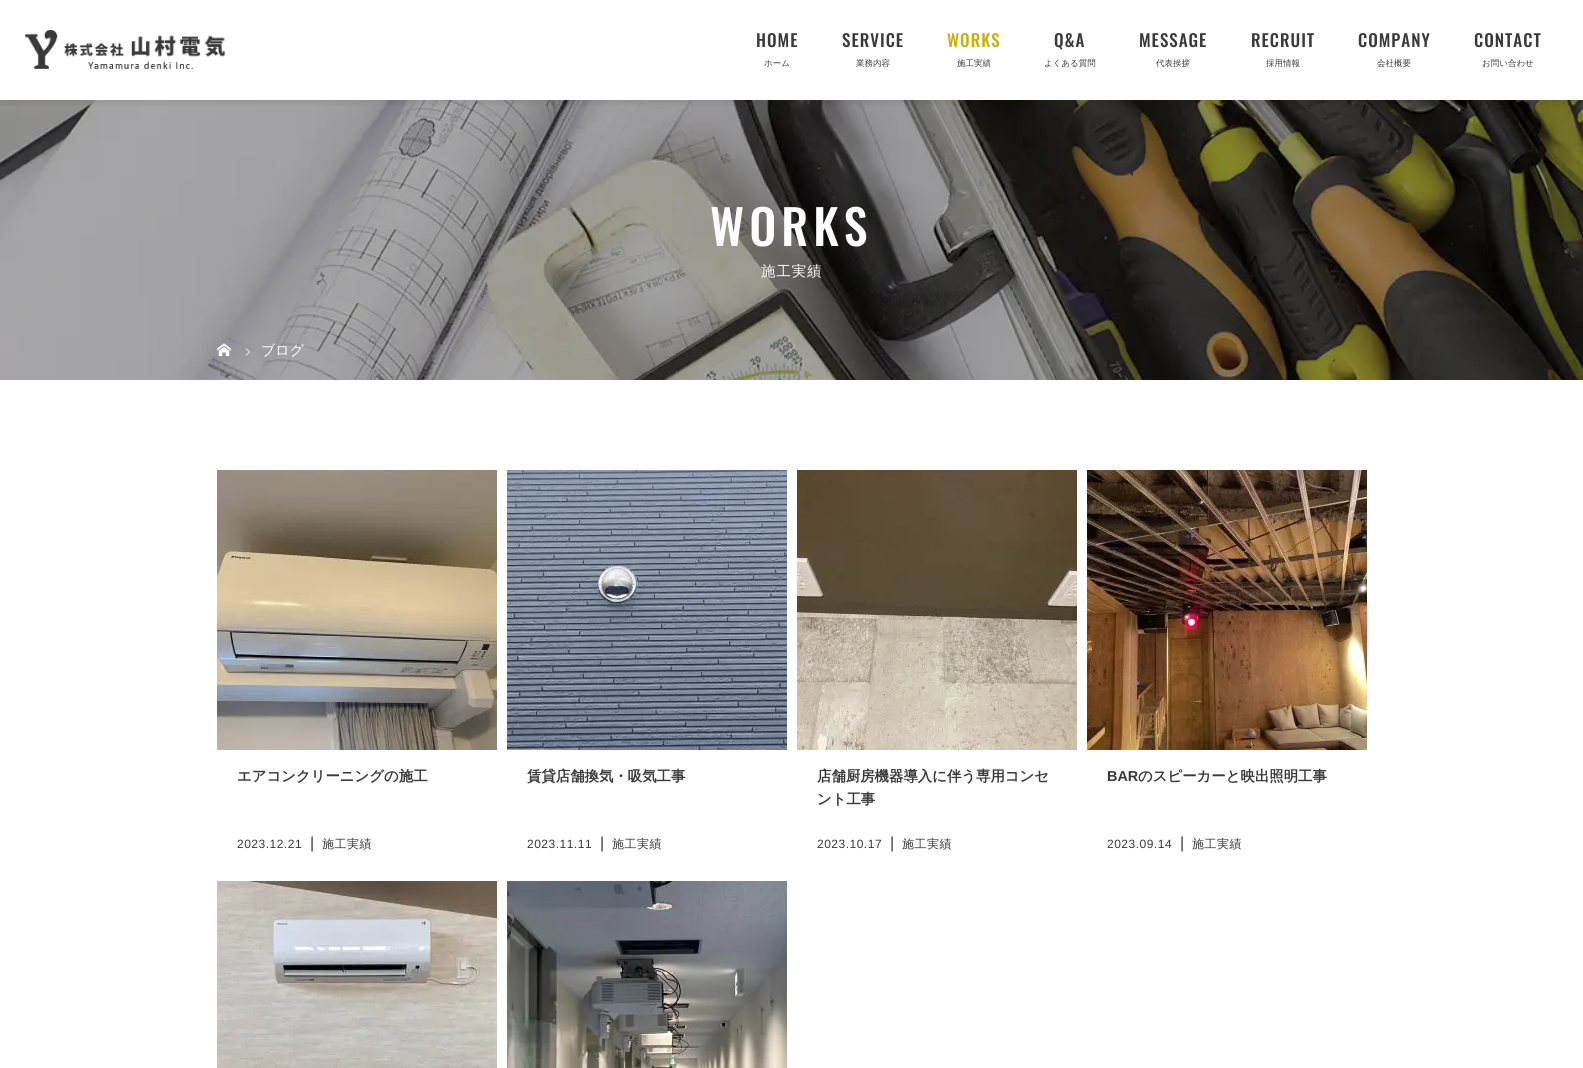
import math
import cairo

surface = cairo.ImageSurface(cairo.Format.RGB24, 1583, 1068)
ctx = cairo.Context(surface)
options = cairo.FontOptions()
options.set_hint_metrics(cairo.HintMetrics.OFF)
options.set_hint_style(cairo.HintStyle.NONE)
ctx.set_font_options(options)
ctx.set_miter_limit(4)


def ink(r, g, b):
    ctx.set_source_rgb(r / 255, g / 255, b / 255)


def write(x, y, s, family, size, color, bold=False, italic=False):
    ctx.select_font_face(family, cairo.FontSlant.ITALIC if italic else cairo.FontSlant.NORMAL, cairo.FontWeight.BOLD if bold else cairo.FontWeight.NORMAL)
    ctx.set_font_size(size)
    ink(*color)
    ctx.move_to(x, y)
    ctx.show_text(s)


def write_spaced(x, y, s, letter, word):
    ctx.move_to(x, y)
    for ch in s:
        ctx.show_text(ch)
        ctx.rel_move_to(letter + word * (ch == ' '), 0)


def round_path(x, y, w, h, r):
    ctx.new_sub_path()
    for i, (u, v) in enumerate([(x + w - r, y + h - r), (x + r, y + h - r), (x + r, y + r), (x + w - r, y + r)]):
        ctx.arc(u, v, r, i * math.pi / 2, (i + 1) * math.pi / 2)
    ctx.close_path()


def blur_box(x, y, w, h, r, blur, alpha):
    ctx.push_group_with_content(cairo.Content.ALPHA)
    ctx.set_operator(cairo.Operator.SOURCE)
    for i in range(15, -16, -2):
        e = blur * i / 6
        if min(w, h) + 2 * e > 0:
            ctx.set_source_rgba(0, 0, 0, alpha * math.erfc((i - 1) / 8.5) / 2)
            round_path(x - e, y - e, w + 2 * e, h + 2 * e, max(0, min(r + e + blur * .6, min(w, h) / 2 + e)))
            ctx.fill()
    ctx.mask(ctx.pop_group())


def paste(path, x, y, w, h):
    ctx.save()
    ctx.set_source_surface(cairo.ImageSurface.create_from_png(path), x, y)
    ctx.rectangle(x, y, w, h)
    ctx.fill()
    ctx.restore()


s1 = dict(family="WenQuanYi Zen Hei Medium", size=8.5, color=(57, 57, 57))
s2 = dict(family="WenQuanYi Zen Hei Medium", size=14, color=(255, 255, 255))
s3 = dict(family="WenQuanYi Zen Hei", size=14.4, color=(57, 57, 57), bold=True)
s4 = dict(family="Liberation Sans", size=14.4, color=(57, 57, 57), bold=True)

ink(255, 255, 255)
ctx.paint()
paste("pic2.png", 0, 100, 1583, 280)
ctx.save()
ctx.rectangle(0, 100, 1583, 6)
ctx.clip()
ink(0, 0, 0)
blur_box(1, 1, 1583, 100, 0, 5, 0.12)
ctx.restore()
paste("pic1.png", 25, 30, 200, 39)
ctx.select_font_face("Oswald Medium")
ctx.set_font_size(17)
ink(57, 57, 57)
write_spaced(756, 47, "HOME", 1, 0)
write(764, 66, "ホーム", **s1)
ctx.select_font_face("Oswald Medium")
ctx.set_font_size(17)
write_spaced(842, 47, "SERVICE", 1, 0)
write(856, 66, "業務内容", **s1)
ctx.select_font_face("Oswald Medium")
ctx.set_font_size(17)
ink(201, 176, 6)
write_spaced(947, 47, "WORKS", 1, 0)
write(957, 66, "施工実績", **s1)
ctx.select_font_face("Oswald Medium")
ctx.set_font_size(17)
write_spaced(1054, 47, "Q&A", 1, 0)
write(1044, 66, "よくある質問", **s1)
ctx.select_font_face("Oswald Medium")
ctx.set_font_size(17)
write_spaced(1139, 47, "MESSAGE", 1, 0)
write(1156, 66, "代表挨拶", **s1)
ctx.select_font_face("Oswald Medium")
ctx.set_font_size(17)
write_spaced(1251, 47, "RECRUIT", 1, 0)
write(1266, 66, "採用情報", **s1)
ctx.select_font_face("Oswald Medium")
ctx.set_font_size(17)
write_spaced(1358, 47, "COMPANY", 1, 0)
write(1377, 66, "会社概要", **s1)
ctx.select_font_face("Oswald Medium")
ctx.set_font_size(17)
write_spaced(1474, 47, "CONTACT", 1, 0)
write(1482, 66, "お問い合わせ", **s1)
ctx.select_font_face("Oswald Medium")
ctx.set_font_size(48)
ink(255, 255, 255)
write_spaced(710, 246, "WORKS", 5, 0)
ctx.select_font_face("WenQuanYi Zen Hei Medium")
ctx.set_font_size(14.4)
write_spaced(761, 276, "施工実績", 1, 0)
paste("pic3.png", 217, 343, 14, 13)
paste("pic4.png", 245, 348, 5, 8)
write(261, 355, "ブログ", **s2)
paste("pic5.png", 217, 470, 280, 280)
write(237, 781, "エアコンクリーニングの施工", **s3)
ctx.select_font_face("Liberation Sans")
ctx.set_font_size(12)
write_spaced(237, 848, "2023.12.21", 0.5, 0)
ctx.set_font_size(16)
write_spaced(310, 848, "|", 0.5, 0)
ctx.select_font_face("WenQuanYi Zen Hei Medium")
ctx.set_font_size(12)
write_spaced(322, 848, "施工実績", 0.5, 0)
paste("pic6.png", 507, 470, 280, 280)
write(527, 781, "賃貸店舗換気・吸気工事", **s3)
ctx.select_font_face("Liberation Sans")
ctx.set_font_size(12)
write_spaced(527, 848, "2023.11.11", 0.5, 0)
ctx.set_font_size(16)
write_spaced(600, 848, "|", 0.5, 0)
ctx.select_font_face("WenQuanYi Zen Hei Medium")
ctx.set_font_size(12)
write_spaced(612, 848, "施工実績", 0.5, 0)
paste("pic7.png", 797, 470, 280, 280)
write(817, 781, "店舗厨房機器導入に伴う専用コンセ", **s3)
write(817, 804, "ント工事", **s3)
ctx.select_font_face("Liberation Sans")
ctx.set_font_size(12)
write_spaced(817, 848, "2023.10.17", 0.5, 0)
ctx.set_font_size(16)
write_spaced(890, 848, "|", 0.5, 0)
ctx.select_font_face("WenQuanYi Zen Hei Medium")
ctx.set_font_size(12)
write_spaced(902, 848, "施工実績", 0.5, 0)
paste("pic8.png", 1087, 470, 280, 280)
write(1107, 781, "BAR", **s4)
write(1138, 781, "のスピーカーと映出照明工事", **s3)
ctx.select_font_face("Liberation Sans")
ctx.set_font_size(12)
write_spaced(1107, 848, "2023.09.14", 0.5, 0)
ctx.set_font_size(16)
write_spaced(1180, 848, "|", 0.5, 0)
ctx.select_font_face("WenQuanYi Zen Hei Medium")
ctx.set_font_size(12)
write_spaced(1192, 848, "施工実績", 0.5, 0)
paste("pic9.png", 217, 881, 280, 187)
paste("pic10.png", 507, 881, 280, 187)
surface.write_to_png("screenshot.png")
